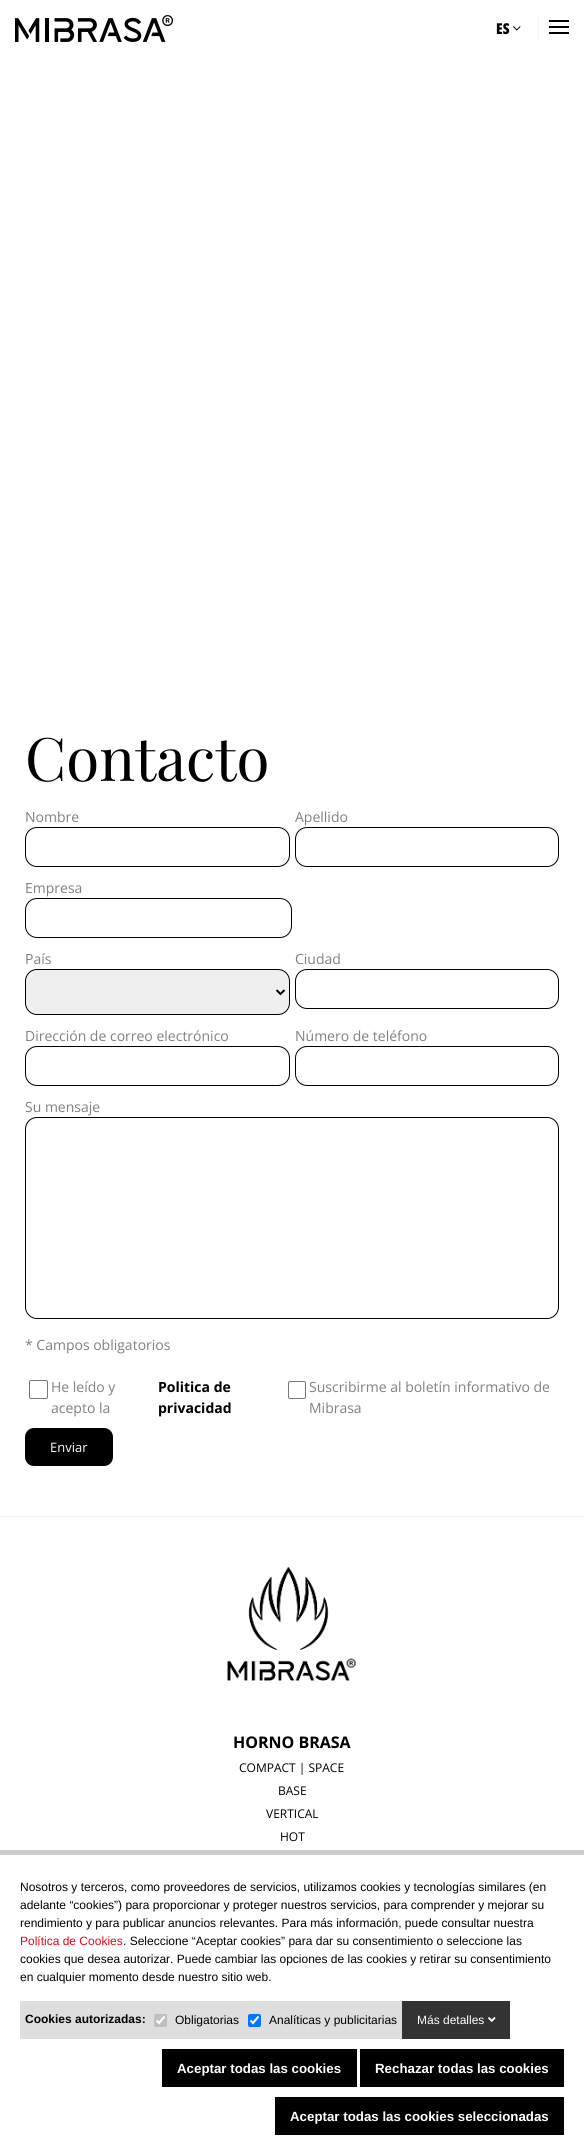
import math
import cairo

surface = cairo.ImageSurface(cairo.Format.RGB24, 584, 2155)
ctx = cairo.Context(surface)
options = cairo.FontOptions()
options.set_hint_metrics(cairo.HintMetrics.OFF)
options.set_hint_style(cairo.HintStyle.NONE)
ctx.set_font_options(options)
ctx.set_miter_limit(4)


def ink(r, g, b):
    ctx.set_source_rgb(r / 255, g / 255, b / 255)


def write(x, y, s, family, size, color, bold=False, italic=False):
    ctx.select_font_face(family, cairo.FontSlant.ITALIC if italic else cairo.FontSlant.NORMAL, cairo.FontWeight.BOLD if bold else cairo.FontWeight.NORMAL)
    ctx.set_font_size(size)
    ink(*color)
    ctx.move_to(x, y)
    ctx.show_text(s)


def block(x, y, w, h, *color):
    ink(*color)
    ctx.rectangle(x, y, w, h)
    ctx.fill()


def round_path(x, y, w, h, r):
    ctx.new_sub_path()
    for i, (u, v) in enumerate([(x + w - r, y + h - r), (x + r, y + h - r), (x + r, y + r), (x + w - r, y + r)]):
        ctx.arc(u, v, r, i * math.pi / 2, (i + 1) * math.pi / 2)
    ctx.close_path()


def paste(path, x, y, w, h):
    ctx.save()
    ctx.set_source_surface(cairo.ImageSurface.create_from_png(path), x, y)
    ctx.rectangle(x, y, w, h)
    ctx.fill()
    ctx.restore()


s1 = dict(family="Open Sans Condensed ExtraBold", size=15, color=(0, 0, 0))
s2 = dict(family="Playfair Display", size=60, color=(0, 0, 0))
s3 = dict(family="Open Sans", size=14, color=(128, 128, 128))
s4 = dict(family="Open Sans", size=14, color=(0, 0, 0), bold=True)
s5 = dict(family="Open Sans", size=13, color=(255, 255, 255))
s6 = dict(family="Open Sans", size=16, color=(0, 0, 0), bold=True)
s7 = dict(family="Open Sans", size=12, color=(0, 0, 0))
s8 = dict(family="Liberation Sans", size=12, color=(0, 0, 0))
s9 = dict(family="Liberation Sans", size=12, color=(225, 7, 23))
s10 = dict(family="Liberation Sans", size=12, color=(0, 0, 0), bold=True)
s11 = dict(family="Liberation Sans", size=12, color=(255, 255, 255))
s12 = dict(family="Liberation Sans", size=13.3, color=(255, 255, 255), bold=True)

ink(255, 255, 255)
ctx.paint()
paste("pic1.png", 15, 15, 158, 27)
write(496, 34, "ES", **s1)
paste("pic2.png", 513, 26, 8, 5)
block(538, 16, 1, 25, 246, 246, 246)
block(549, 20, 20, 2, 0, 0, 0)
block(549, 26, 20, 2, 0, 0, 0)
block(549, 32, 20, 2, 0, 0, 0)
write(25, 781, "Contacto", **s2)
write(25, 822, "Nombre", **s3)
round_path(25.5, 827.5, 264, 39, 11.5)
ink(0, 0, 0)
ctx.set_line_width(1)
ctx.stroke()
write(295, 822, "Apellido", **s3)
round_path(295.5, 827.5, 263, 39, 11.5)
ink(0, 0, 0)
ctx.stroke()
write(25, 893, "Empresa", **s3)
round_path(25.5, 898.5, 266, 39, 11.5)
ink(0, 0, 0)
ctx.stroke()
write(25, 964, "País", **s3)
ink(239, 239, 239)
round_path(25.5, 969.5, 264, 45, 11.5)
ctx.fill_preserve()
ink(0, 0, 0)
ctx.stroke()
ctx.new_path()
ctx.move_to(276.5, 990)
ctx.line_to(280.5, 994)
ctx.line_to(284.5, 990)
ctx.set_line_width(2)
ctx.stroke()
write(295, 964, "Ciudad", **s3)
round_path(295.5, 969.5, 263, 39, 11.5)
ink(0, 0, 0)
ctx.set_line_width(1)
ctx.stroke()
write(25, 1041, "Dirección de correo electrónico", **s3)
round_path(25.5, 1046.5, 264, 39, 11.5)
ink(0, 0, 0)
ctx.stroke()
write(295, 1041, "Número de teléfono", **s3)
round_path(295.5, 1046.5, 263, 39, 11.5)
ink(0, 0, 0)
ctx.stroke()
write(25, 1112, "Su mensaje", **s3)
round_path(25.5, 1117.5, 533, 201, 11.5)
ink(0, 0, 0)
ctx.stroke()
write(25, 1350, "* Campos obligatorios", **s3)
round_path(29.5, 1380.5, 18, 18, 1.5)
ink(118, 118, 118)
ctx.stroke()
write(51, 1392, "He leído y", **s3)
write(158, 1392, "Politica de", **s4)
write(158, 1413, "privacidad", **s4)
write(51, 1413, "acepto la", **s3)
round_path(288.5, 1381.5, 17, 17, 1.5)
ink(118, 118, 118)
ctx.stroke()
write(309, 1392, "Suscribirme al boletín informativo de", **s3)
write(309, 1413, "Mibrasa", **s3)
ink(0, 0, 0)
round_path(25, 1428, 88, 38, 9)
ctx.fill()
write(50, 1452, "Enviar", **s5)
block(0, 1516, 584, 1, 242, 242, 242)
paste("pic3.png", 226, 1567, 131, 114)
write(233, 1748, "HORNO BRASA", **s6)
write(239, 1772, "COMPACT | SPACE", **s7)
write(278, 1795, "BASE", **s7)
write(266, 1818, "VERTICAL", **s7)
write(280, 1841, "HOT", **s7)
block(0, 1850, 584, 5, 204, 204, 204)
write(20, 1891, "Nosotros y terceros, como proveedores de servicios, utilizamos cookies y tecnologías similares (en", **s8)
write(20, 1909, "adelante “cookies”) para proporcionar y proteger nuestros servicios, para comprender y mejorar su", **s8)
write(20, 1927, "rendimiento y para publicar anuncios relevantes. Para más información, puede consultar nuestra", **s8)
write(20, 1945, "Política de Cookies", **s9)
write(123, 1945, ". Seleccione “Aceptar cookies” para dar su consentimiento o seleccione las", **s8)
write(20, 1963, "cookies que desea autorizar. Puede cambiar las opciones de las cookies y retirar su consentimiento", **s8)
write(20, 1981, "en cualquier momento desde nuestro sitio web.", **s8)
block(20, 2001, 382, 38, 222, 222, 222)
write(25, 2023, "Cookies autorizadas:", **s10)
ink(191, 191, 191)
round_path(154, 2014, 13, 13, 2)
ctx.fill()
ctx.new_path()
ctx.move_to(156.5, 2020.5)
ctx.line_to(159, 2023)
ctx.line_to(164.5, 2016.5)
ink(255, 255, 255)
ctx.set_line_width(2.1)
ctx.stroke()
write(175, 2024, "Obligatorias", **s8)
ink(0, 117, 255)
round_path(248, 2014, 13, 13, 2)
ctx.fill()
ctx.new_path()
ctx.move_to(250.5, 2020.5)
ctx.line_to(253, 2023)
ctx.line_to(258.5, 2016.5)
ink(255, 255, 255)
ctx.stroke()
write(269, 2024, "Analíticas y publicitarias", **s8)
block(402, 2001, 108, 38, 51, 51, 51)
write(417, 2024, "Más detalles", **s11)
paste("pic4.png", 488, 2017, 8, 5)
block(162, 2049, 195, 38, 0, 0, 0)
write(177, 2073, "Aceptar todas las cookies", **s12)
block(360, 2049, 204, 38, 0, 0, 0)
write(375, 2073, "Rechazar todas las cookies", **s12)
block(275, 2097, 289, 38, 0, 0, 0)
write(290, 2121, "Aceptar todas las cookies seleccionadas", **s12)
surface.write_to_png("screenshot.png")
